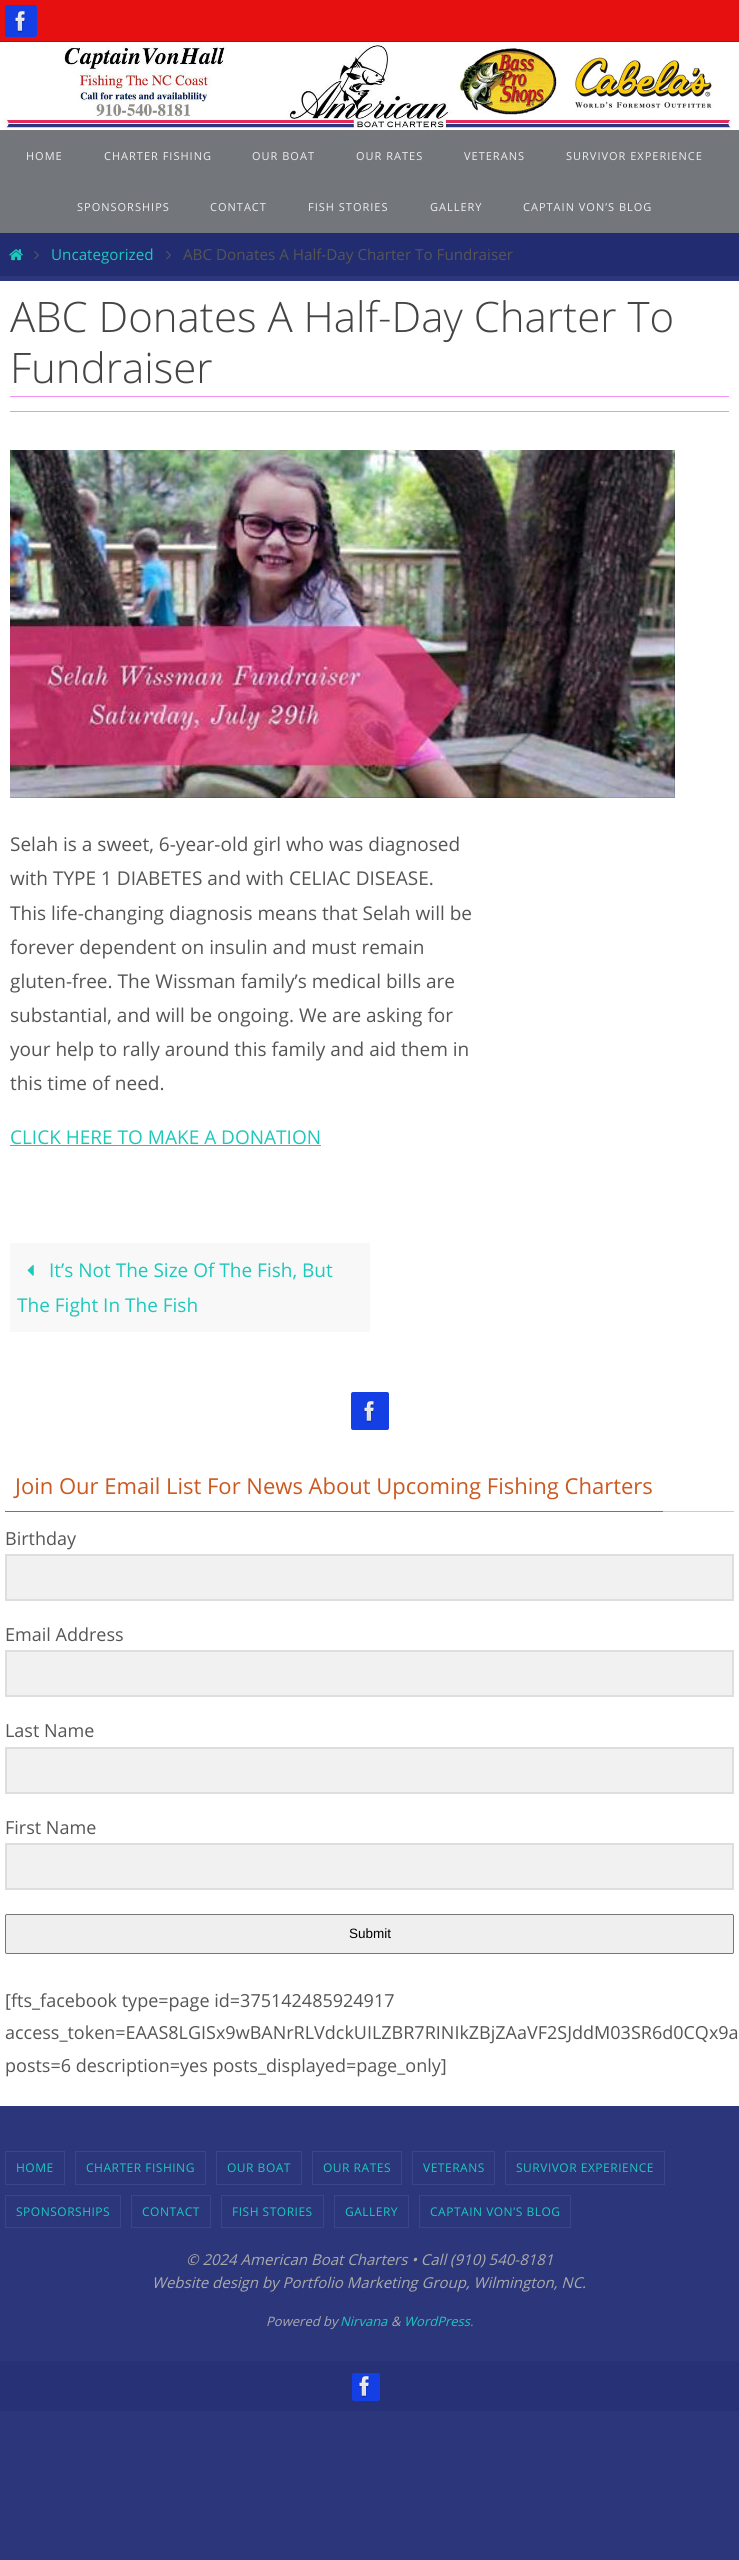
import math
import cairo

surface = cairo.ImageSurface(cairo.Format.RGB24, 739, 2560)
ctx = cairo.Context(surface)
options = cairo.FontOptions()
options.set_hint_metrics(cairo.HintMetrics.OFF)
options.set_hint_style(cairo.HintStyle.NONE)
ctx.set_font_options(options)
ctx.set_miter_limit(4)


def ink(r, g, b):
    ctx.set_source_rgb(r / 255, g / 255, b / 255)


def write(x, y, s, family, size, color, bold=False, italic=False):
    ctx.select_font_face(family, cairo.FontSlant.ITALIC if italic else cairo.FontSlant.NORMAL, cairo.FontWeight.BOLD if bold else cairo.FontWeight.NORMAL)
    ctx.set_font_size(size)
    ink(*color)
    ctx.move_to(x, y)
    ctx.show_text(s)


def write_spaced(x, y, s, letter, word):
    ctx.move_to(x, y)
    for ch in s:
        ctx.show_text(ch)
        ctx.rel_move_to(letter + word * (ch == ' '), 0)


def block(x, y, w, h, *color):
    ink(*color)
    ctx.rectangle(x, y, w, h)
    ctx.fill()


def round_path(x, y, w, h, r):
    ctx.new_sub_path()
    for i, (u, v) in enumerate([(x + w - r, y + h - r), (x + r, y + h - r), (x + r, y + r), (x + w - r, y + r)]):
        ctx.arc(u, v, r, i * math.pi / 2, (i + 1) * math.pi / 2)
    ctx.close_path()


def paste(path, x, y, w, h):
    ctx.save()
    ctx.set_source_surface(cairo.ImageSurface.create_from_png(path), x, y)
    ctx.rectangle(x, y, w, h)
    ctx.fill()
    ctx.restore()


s1 = dict(family="Open Sans", size=15.2, color=(30, 200, 187))
s2 = dict(family="Open Sans", size=15.2, color=(85, 85, 85))
s3 = dict(family="Open Sans Light", size=42, color=(68, 68, 68))
s4 = dict(family="Open Sans", size=19, color=(85, 85, 85))
s5 = dict(family="Open Sans", size=19, color=(30, 200, 187))
s6 = dict(family="Open Sans", size=22, color=(203, 89, 32))
s7 = dict(family="Open Sans", size=18, color=(85, 85, 85))
s8 = dict(family="Liberation Sans", size=13.5, color=(0, 0, 0))
s9 = dict(family="Open Sans", size=15, color=(170, 170, 170), italic=True)
s10 = dict(family="Open Sans", size=13, color=(170, 170, 170), italic=True)
s11 = dict(family="Open Sans", size=13, color=(30, 200, 187), italic=True)

ink(43, 54, 123)
ctx.paint()
block(0, 0, 739, 41, 231, 16, 16)
block(0, 41, 739, 1, 211, 0, 0)
ink(20, 63, 229)
round_path(5, 5, 32, 32, 2)
ctx.fill()
paste("pic1.png", 14, 11, 12, 22)
block(0, 42, 739, 88, 255, 255, 255)
paste("pic2.png", 4, 42, 727, 88)
block(0, 130, 739, 103, 115, 118, 123)
ctx.select_font_face("Open Sans")
ctx.set_font_size(11)
ink(238, 238, 238)
write_spaced(26, 160, "HOME", 1, 0)
write_spaced(104, 160, "CHARTER FISHING", 1, 0)
write_spaced(252, 160, "OUR BOAT", 1, 0)
write_spaced(356, 160, "OUR RATES", 1, 0)
write_spaced(464, 160, "VETERANS", 1, 0)
write_spaced(566, 160, "SURVIVOR EXPERIENCE", 1, 0)
write_spaced(77, 211, "SPONSORSHIPS", 1, 0)
write_spaced(210, 211, "CONTACT", 1, 0)
write_spaced(308, 211, "FISH STORIES", 1, 0)
write_spaced(430, 211, "GALLERY", 1, 0)
write_spaced(523, 211, "CAPTAIN VON’S BLOG", 1, 0)
block(0, 233, 739, 43, 33, 44, 113)
paste("pic3.png", 9, 249, 14, 12)
paste("pic4.png", 34, 251, 5, 9)
write(51, 260, "Uncategorized", **s1)
paste("pic4.png", 166, 251, 5, 9)
write(183, 260, "ABC Donates A Half-Day Charter To Fundraiser", **s2)
block(0, 281, 739, 1825, 255, 255, 255)
write(10, 332, "ABC Donates A Half-Day Charter To", **s3)
write(10, 383, "Fundraiser", **s3)
block(10, 396, 719, 1, 239, 145, 246)
block(10, 411, 719, 1, 239, 145, 246)
paste("pic5.png", 10, 450, 665, 348)
write(10, 851, "Selah is a sweet, 6-year-old girl who was diagnosed", **s4)
write(10, 885, "with TYPE 1 DIABETES and with CELIAC DISEASE.", **s4)
write(10, 920, "This life-changing diagnosis means that Selah will be", **s4)
write(10, 954, "forever dependent on insulin and must remain", **s4)
write(10, 988, "gluten-free. The Wissman family’s medical bills are", **s4)
write(10, 1022, "substantial, and will be ongoing. We are asking for", **s4)
write(10, 1056, "your help to rally around this family and aid them in", **s4)
write(10, 1090, "this time of need.", **s4)
write(10, 1144, "CLICK HERE TO MAKE A DONATION", **s5)
block(10, 1145, 311, 1, 30, 200, 187)
block(10, 1243, 360, 89, 248, 248, 248)
paste("pic6.png", 27, 1265, 7, 11)
write(49, 1277, "It’s Not The Size Of The Fish, But", **s5)
write(17, 1312, "The Fight In The Fish", **s5)
ink(20, 63, 229)
round_path(351, 1392, 38, 38, 2)
ctx.fill()
paste("pic1.png", 363, 1401, 12, 22)
block(663, 1511, 71, 1, 204, 204, 204)
block(5, 1511, 658, 1, 203, 89, 32)
write(15, 1494, "Join Our Email List For News About Upcoming Fishing Charters", **s6)
write(5, 1545, "Birthday", **s7)
ink(241, 241, 241)
ctx.rectangle(6, 1555, 727, 45)
ctx.fill_preserve()
ink(222, 222, 222)
ctx.stroke()
write(5, 1641, "Email Address", **s7)
ink(241, 241, 241)
ctx.rectangle(6, 1651, 727, 45)
ctx.fill_preserve()
ink(222, 222, 222)
ctx.stroke()
write(5, 1737, "Last Name", **s7)
ink(241, 241, 241)
ctx.rectangle(6, 1748, 727, 45)
ctx.fill_preserve()
ink(222, 222, 222)
ctx.stroke()
write(5, 1834, "First Name", **s7)
ink(241, 241, 241)
ctx.rectangle(6, 1844, 727, 45)
ctx.fill_preserve()
ink(222, 222, 222)
ctx.stroke()
ink(239, 239, 239)
round_path(5.5, 1914.5, 728, 39, 1.5)
ctx.fill_preserve()
ink(118, 118, 118)
ctx.set_line_width(1)
ctx.stroke()
write(349, 1938, "Submit", **s8)
write(5, 2007, "[fts_facebook type=page id=375142485924917", **s7)
write(5, 2039, "access_token=EAAS8LGISx9wBANrRLVdckUILZBR7RINIkZBjZAaVF2SJddM03SR6d0CQx9a", **s7)
write(5, 2072, "posts=6 description=yes posts_displayed=page_only]", **s7)
ctx.rectangle(5.5, 2151.5, 59, 33)
ink(58, 69, 138)
ctx.stroke()
ctx.set_font_size(12)
ink(30, 200, 187)
write_spaced(16, 2172, "HOME", 0.5, 0)
ctx.rectangle(75.5, 2151.5, 130, 33)
ink(58, 69, 138)
ctx.stroke()
ink(30, 200, 187)
write_spaced(86, 2172, "CHARTER FISHING", 0.5, 0)
ctx.rectangle(216.5, 2151.5, 85, 33)
ink(58, 69, 138)
ctx.stroke()
ink(30, 200, 187)
write_spaced(227, 2172, "OUR BOAT", 0.5, 0)
ctx.rectangle(312.5, 2151.5, 89, 33)
ink(58, 69, 138)
ctx.stroke()
ink(30, 200, 187)
write_spaced(323, 2172, "OUR RATES", 0.5, 0)
ctx.rectangle(412.5, 2151.5, 82, 33)
ink(58, 69, 138)
ctx.stroke()
ink(30, 200, 187)
write_spaced(423, 2172, "VETERANS", 0.5, 0)
ctx.rectangle(505.5, 2151.5, 159, 33)
ink(58, 69, 138)
ctx.stroke()
ink(30, 200, 187)
write_spaced(516, 2172, "SURVIVOR EXPERIENCE", 0.5, 0)
ctx.rectangle(5.5, 2195.5, 115, 32)
ink(58, 69, 138)
ctx.stroke()
ink(30, 200, 187)
write_spaced(16, 2216, "SPONSORSHIPS", 0.5, 0)
ctx.rectangle(131.5, 2195.5, 79, 32)
ink(58, 69, 138)
ctx.stroke()
ink(30, 200, 187)
write_spaced(142, 2216, "CONTACT", 0.5, 0)
ctx.rectangle(221.5, 2195.5, 102, 32)
ink(58, 69, 138)
ctx.stroke()
ink(30, 200, 187)
write_spaced(232, 2216, "FISH STORIES", 0.5, 0)
ctx.rectangle(334.5, 2195.5, 74, 32)
ink(58, 69, 138)
ctx.stroke()
ink(30, 200, 187)
write_spaced(345, 2216, "GALLERY", 0.5, 0)
ctx.rectangle(419.5, 2195.5, 151, 32)
ink(58, 69, 138)
ctx.stroke()
ink(30, 200, 187)
write_spaced(430, 2216, "CAPTAIN VON’S BLOG", 0.5, 0)
write(186, 2265, "© 2024 American Boat Charters • Call (910) 540-8181", **s9)
write(152, 2288, "Website design by Portfolio Marketing Group, Wilmington, NC.", **s9)
write(266, 2326, "Powered by", **s10)
write(340, 2326, "Nirvana", **s11)
write(391, 2326, "&", **s10)
write(404, 2326, "WordPress.", **s11)
block(0, 2361, 739, 50, 38, 49, 118)
ink(20, 63, 229)
round_path(352, 2373, 28, 28, 2)
ctx.fill()
paste("pic1.png", 358, 2376, 12, 22)
surface.write_to_png("screenshot.png")
